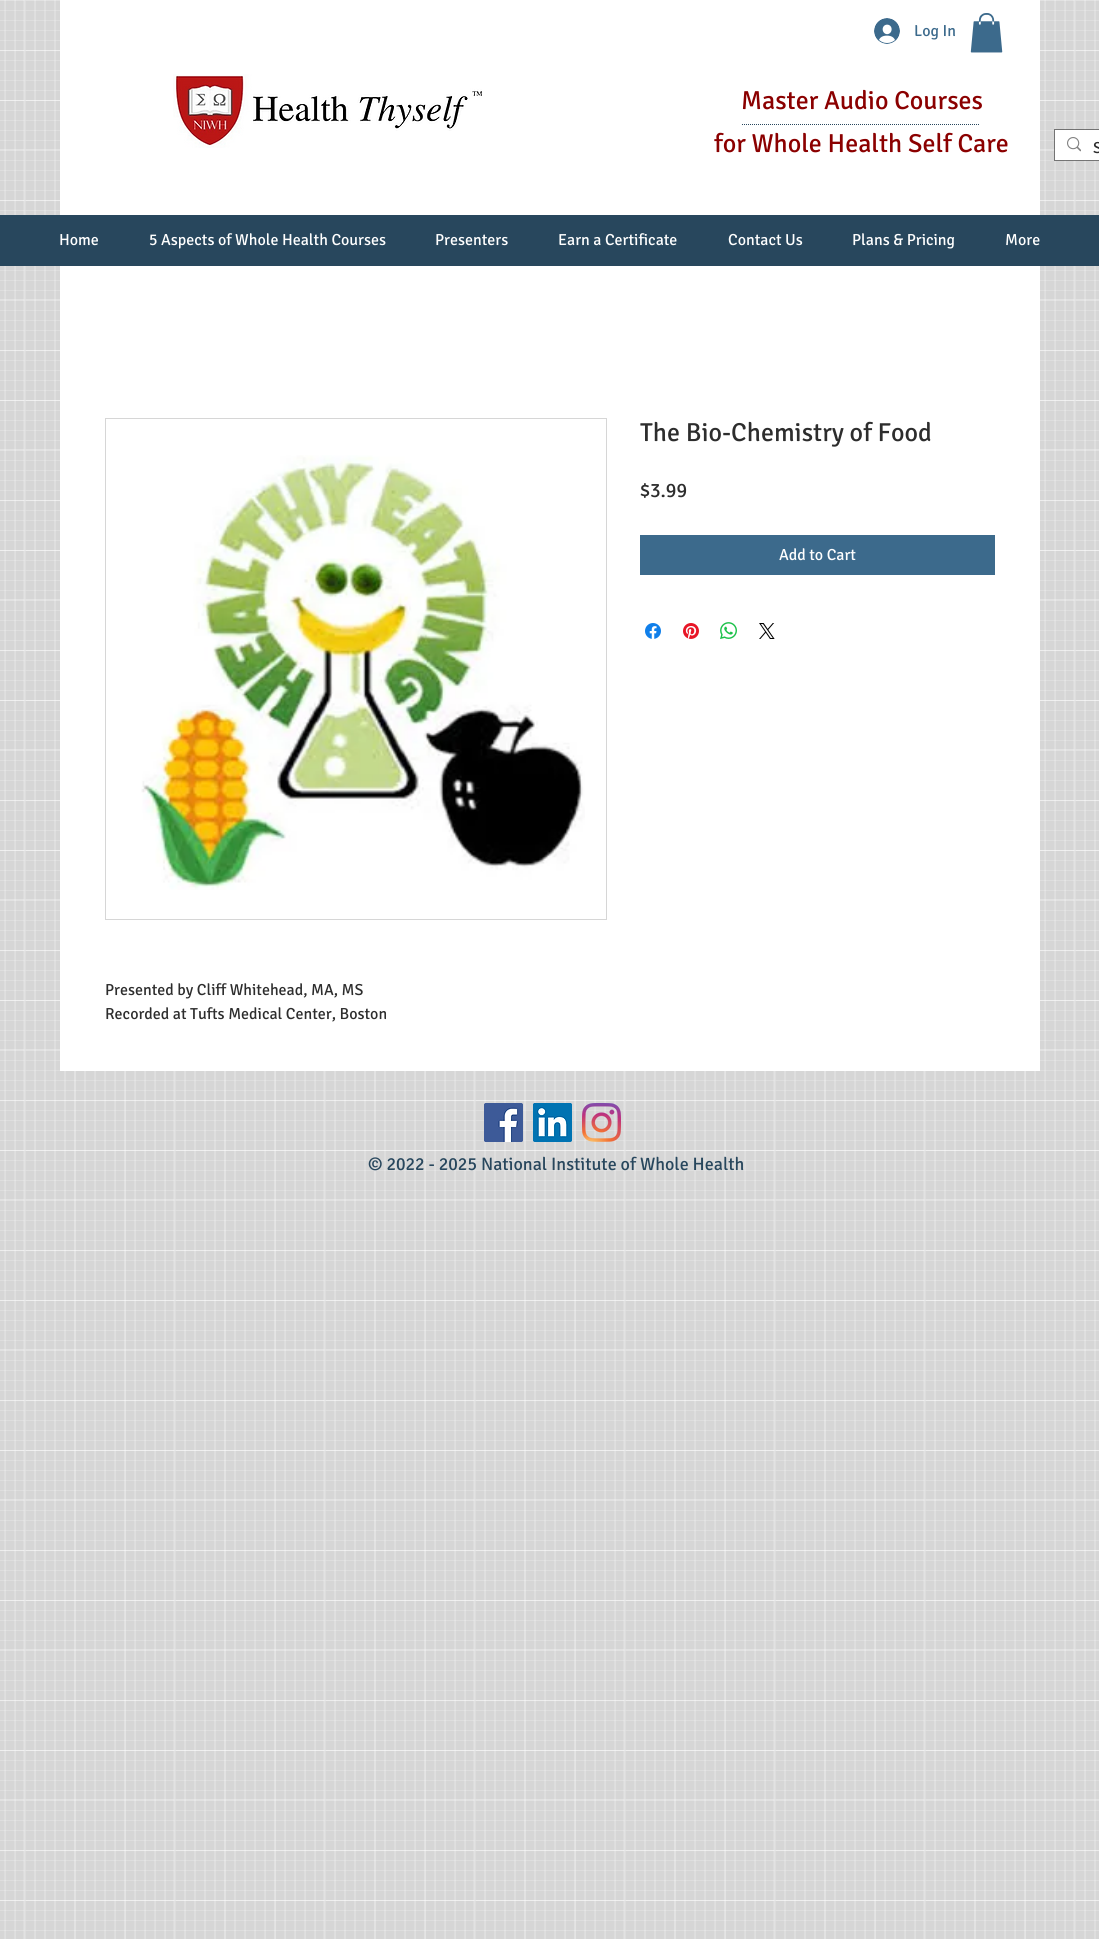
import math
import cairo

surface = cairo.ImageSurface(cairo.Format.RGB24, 1099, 1939)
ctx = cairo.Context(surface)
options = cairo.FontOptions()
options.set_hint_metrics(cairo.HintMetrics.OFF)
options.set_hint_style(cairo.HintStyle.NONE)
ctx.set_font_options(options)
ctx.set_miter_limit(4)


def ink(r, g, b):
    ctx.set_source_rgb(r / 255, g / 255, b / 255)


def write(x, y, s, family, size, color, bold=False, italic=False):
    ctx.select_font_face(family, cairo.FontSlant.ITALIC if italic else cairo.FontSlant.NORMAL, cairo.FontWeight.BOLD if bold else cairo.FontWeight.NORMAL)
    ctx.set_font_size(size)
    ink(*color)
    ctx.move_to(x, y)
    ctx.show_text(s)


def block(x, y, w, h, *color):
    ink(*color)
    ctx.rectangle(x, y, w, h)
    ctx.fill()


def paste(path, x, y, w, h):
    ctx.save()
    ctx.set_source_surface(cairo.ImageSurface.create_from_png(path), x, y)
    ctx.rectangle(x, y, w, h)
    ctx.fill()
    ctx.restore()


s1 = dict(family="Signika", size=16, color=(60, 106, 140))
s2 = dict(family="Signika", size=26, color=(139, 0, 0))
s3 = dict(family="Signika", size=16, color=(45, 45, 45))
s4 = dict(family="Signika", size=16, color=(255, 255, 255))
s5 = dict(family="Signika", size=26, color=(45, 45, 45))
s6 = dict(family="Signika", size=20, color=(45, 45, 45))
s7 = dict(family="Signika", size=18, color=(40, 71, 93))

ink(214, 214, 214)
ctx.paint()
paste("pic1.png", 0, 0, 1099, 1939)
block(60, 0, 980, 1071, 255, 255, 255)
paste("pic2.png", 874, 18, 26, 26)
write(914, 36, "Log In", **s1)
paste("pic3.png", 970, 13, 33, 40)
paste("pic4.png", 173, 74, 309, 74)
write(741, 109, "Master Audio Courses", **s2)
ctx.new_path()
ctx.move_to(742, 124.5)
ctx.line_to(980, 124.5)
ink(40, 71, 93)
ctx.set_line_width(1)
ctx.set_dash([1, 1])
ctx.stroke()
write(714, 152, "for Whole Health Self Care", **s2)
ctx.rectangle(1054.5, 129.5, 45, 31)
ctx.set_source_rgba(0.176, 0.176, 0.176, 0.6)
ctx.set_dash([])
ctx.stroke()
block(1055, 130, 44, 30, 255, 255, 255)
paste("pic5.png", 1067, 137, 14, 15)
write(1093, 153, "S", **s3)
block(0, 215, 1099, 51, 40, 71, 93)
write(59, 245, "Home", **s4)
write(149, 245, "5 Aspects of Whole Health Courses", **s4)
write(435, 245, "Presenters", **s4)
write(558, 245, "Earn a Certificate", **s4)
write(728, 245, "Contact Us", **s4)
write(852, 245, "Plans & Pricing", **s4)
write(1005, 245, "More", **s4)
write(640, 441, "The Bio-Chemistry of Food", **s5)
write(640, 497, "$3.99", **s6)
block(640, 535, 355, 40, 60, 106, 140)
write(779, 560, "Add to Cart", **s4)
paste("pic6.png", 645, 623, 16, 16)
paste("pic7.png", 683, 623, 16, 16)
paste("pic8.png", 720, 622, 17, 17)
paste("pic9.png", 759, 623, 16, 16)
ctx.rectangle(105.5, 418.5, 501, 501)
ink(214, 214, 214)
ctx.stroke()
paste("pic10.png", 141, 455, 444, 435)
write(105, 995, "Presented by Cliff Whitehead, MA, MS", **s3)
write(105, 1019, "Recorded at Tufts Medical Center, Boston", **s3)
paste("pic11.png", 484, 1103, 39, 39)
paste("pic12.png", 533, 1103, 39, 39)
paste("pic13.png", 582, 1103, 39, 39)
write(368, 1170, "© 2022 - 2025 National Institute of Whole Health", **s7)
surface.write_to_png("screenshot.png")
